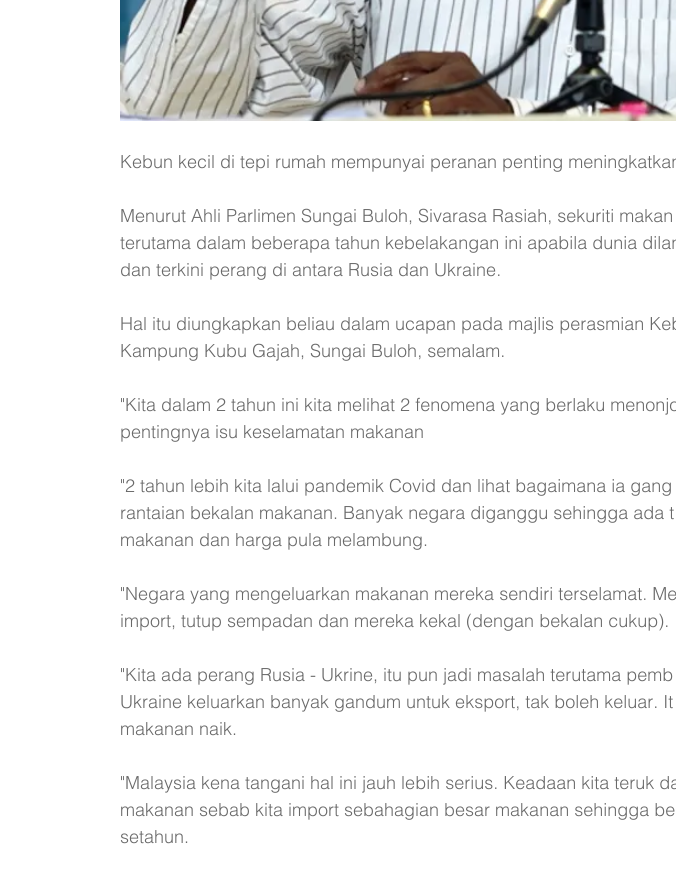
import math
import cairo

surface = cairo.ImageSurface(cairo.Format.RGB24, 676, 876)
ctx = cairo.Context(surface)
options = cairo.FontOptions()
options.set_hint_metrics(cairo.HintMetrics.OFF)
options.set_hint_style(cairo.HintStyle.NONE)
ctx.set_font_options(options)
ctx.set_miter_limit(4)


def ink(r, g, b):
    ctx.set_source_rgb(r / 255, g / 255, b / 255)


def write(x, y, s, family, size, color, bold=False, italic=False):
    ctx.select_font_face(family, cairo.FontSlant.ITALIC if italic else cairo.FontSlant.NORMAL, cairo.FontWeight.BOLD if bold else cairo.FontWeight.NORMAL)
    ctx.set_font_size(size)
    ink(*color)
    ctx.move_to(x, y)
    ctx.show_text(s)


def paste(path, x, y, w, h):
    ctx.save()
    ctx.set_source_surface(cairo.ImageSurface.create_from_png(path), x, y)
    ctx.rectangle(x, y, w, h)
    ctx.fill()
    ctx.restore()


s1 = dict(family="helvetica Light", size=18, color=(105, 105, 105))

ink(255, 255, 255)
ctx.paint()
paste("pic1.png", 120, 0, 556, 121)
write(120, 168, "Kebun kecil di tepi rumah mempunyai peranan penting meningkatkan", **s1)
write(120, 222, "Menurut Ahli Parlimen Sungai Buloh, Sivarasa Rasiah, sekuriti makan", **s1)
write(120, 249, "terutama dalam beberapa tahun kebelakangan ini apabila dunia dilan", **s1)
write(120, 276, "dan terkini perang di antara Rusia dan Ukraine.", **s1)
write(120, 330, "Hal itu diungkapkan beliau dalam ucapan pada majlis perasmian Keb", **s1)
write(120, 357, "Kampung Kubu Gajah, Sungai Buloh, semalam.", **s1)
write(120, 411, "\"Kita dalam 2 tahun ini kita melihat 2 fenomena yang berlaku menonjo", **s1)
write(120, 438, "pentingnya isu keselamatan makanan", **s1)
write(120, 492, "\"2 tahun lebih kita lalui pandemik Covid dan lihat bagaimana ia gang", **s1)
write(120, 519, "rantaian bekalan makanan. Banyak negara diganggu sehingga ada t", **s1)
write(120, 546, "makanan dan harga pula melambung.", **s1)
write(120, 600, "\"Negara yang mengeluarkan makanan mereka sendiri terselamat. Me", **s1)
write(120, 627, "import, tutup sempadan dan mereka kekal (dengan bekalan cukup).", **s1)
write(120, 681, "\"Kita ada perang Rusia - Ukrine, itu pun jadi masalah terutama pemb", **s1)
write(120, 708, "Ukraine keluarkan banyak gandum untuk eksport, tak boleh keluar. It", **s1)
write(120, 735, "makanan naik.", **s1)
write(120, 789, "\"Malaysia kena tangani hal ini jauh lebih serius. Keadaan kita teruk da", **s1)
write(120, 816, "makanan sebab kita import sebahagian besar makanan sehingga be", **s1)
write(120, 843, "setahun.", **s1)
surface.write_to_png("screenshot.png")
